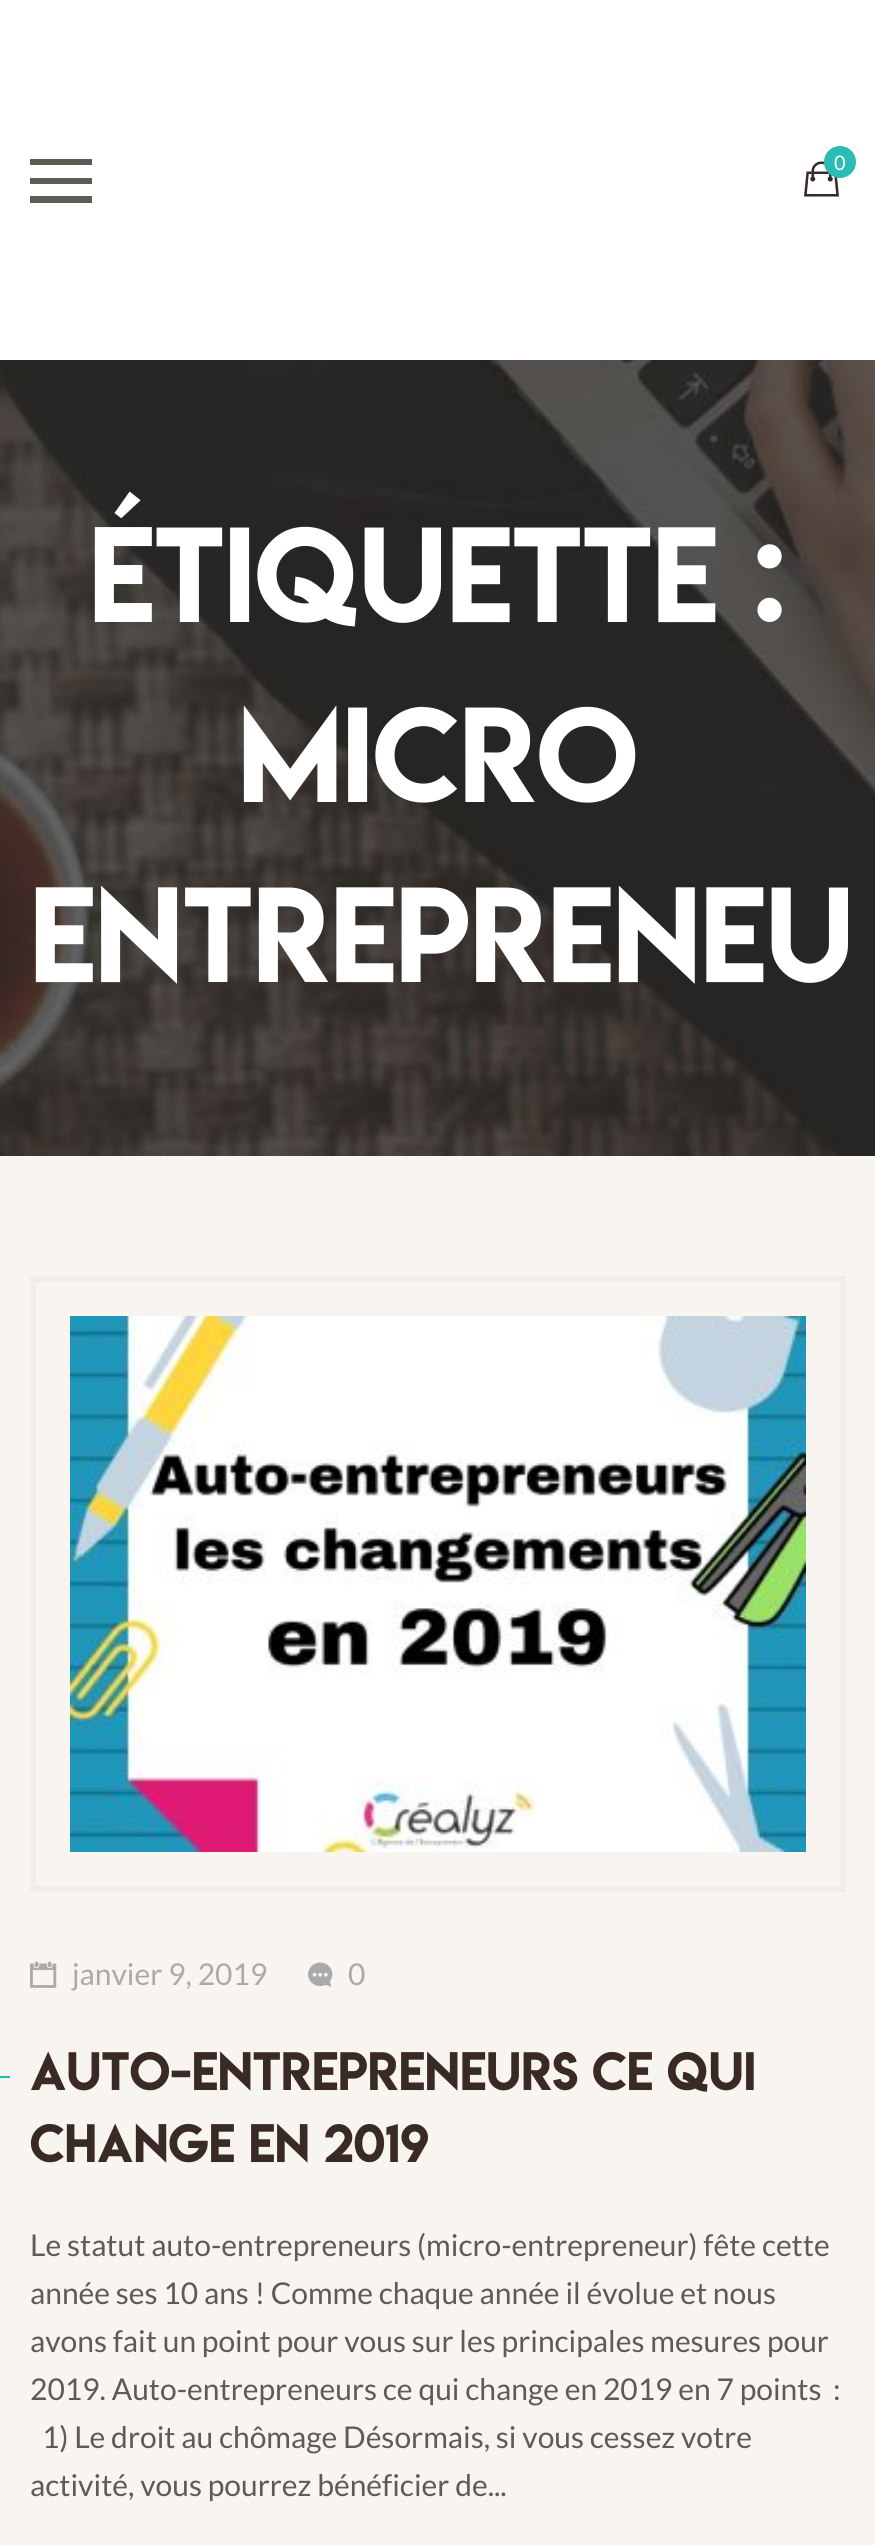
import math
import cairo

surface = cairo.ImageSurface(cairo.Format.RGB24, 875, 2545)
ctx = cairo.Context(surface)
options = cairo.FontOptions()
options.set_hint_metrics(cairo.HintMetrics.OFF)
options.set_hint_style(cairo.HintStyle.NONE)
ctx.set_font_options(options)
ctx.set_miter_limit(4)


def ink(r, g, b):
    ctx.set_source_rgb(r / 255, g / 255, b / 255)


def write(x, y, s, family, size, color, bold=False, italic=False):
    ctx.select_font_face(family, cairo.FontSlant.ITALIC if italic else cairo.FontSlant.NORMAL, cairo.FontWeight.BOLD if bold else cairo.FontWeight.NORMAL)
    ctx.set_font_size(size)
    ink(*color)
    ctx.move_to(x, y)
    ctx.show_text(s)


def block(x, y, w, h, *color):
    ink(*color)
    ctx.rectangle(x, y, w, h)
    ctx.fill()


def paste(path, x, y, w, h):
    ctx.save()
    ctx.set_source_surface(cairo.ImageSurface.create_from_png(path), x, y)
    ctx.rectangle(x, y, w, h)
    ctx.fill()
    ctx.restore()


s1 = dict(family="Lato", size=20, color=(255, 255, 255))
s2 = dict(family="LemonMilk", size=120, color=(255, 255, 255))
s3 = dict(family="Lato", size=30, color=(170, 170, 170))
s4 = dict(family="LemonMilk", size=48, color=(57, 42, 37))
s5 = dict(family="Lato", size=30, color=(94, 90, 84))

ink(248, 245, 240)
ctx.paint()
block(0, 0, 875, 360, 255, 255, 255)
ink(94, 90, 84)
ctx.new_path()
ctx.move_to(30, 184)
ctx.line_to(30, 178)
ctx.line_to(92, 178)
ctx.line_to(92, 184)
ctx.close_path()
ctx.move_to(30, 165)
ctx.line_to(30, 159)
ctx.line_to(92, 159)
ctx.line_to(92, 165)
ctx.close_path()
ctx.move_to(30, 203)
ctx.line_to(30, 196)
ctx.line_to(92, 196)
ctx.line_to(92, 203)
ctx.close_path()
ctx.fill()
paste("pic1.png", 804, 161, 35, 36)
ink(43, 188, 181)
ctx.arc(840, 162, 16, 0, 2 * math.pi)
ctx.fill()
write(834, 170, "0", **s1)
paste("pic2.png", 0, 360, 875, 796)
write(89, 622, "Étiquette :", **s2)
write(238, 802, "micro", **s2)
write(30, 982, "entrepreneu", **s2)
ctx.rectangle(33, 1279, 810, 610)
ink(241, 238, 234)
ctx.set_line_width(6)
ctx.stroke()
paste("pic3.png", 70, 1316, 736, 536)
paste("pic4.png", 30, 1961, 27, 27)
write(72, 1985, "janvier 9, 2019", **s3)
paste("pic5.png", 308, 1962, 25, 25)
write(348, 1985, "0", **s3)
block(0, 2076, 10, 2, 30, 188, 178)
write(30, 2090, "AUTO-ENTREPRENEURS CE QUI", **s4)
write(30, 2162, "CHANGE EN 2019", **s4)
write(30, 2256, "Le statut auto-entrepreneurs (micro-entrepreneur) fête cette", **s5)
write(30, 2304, "année ses 10 ans ! Comme chaque année il évolue et nous", **s5)
write(30, 2352, "avons fait un point pour vous sur les principales mesures pour", **s5)
write(30, 2400, "2019. Auto-entrepreneurs ce qui change en 2019 en 7 points  :", **s5)
write(42, 2448, "1) Le droit au chômage Désormais, si vous cessez votre", **s5)
write(30, 2496, "activité, vous pourrez bénéficier de...", **s5)
surface.write_to_png("screenshot.png")
